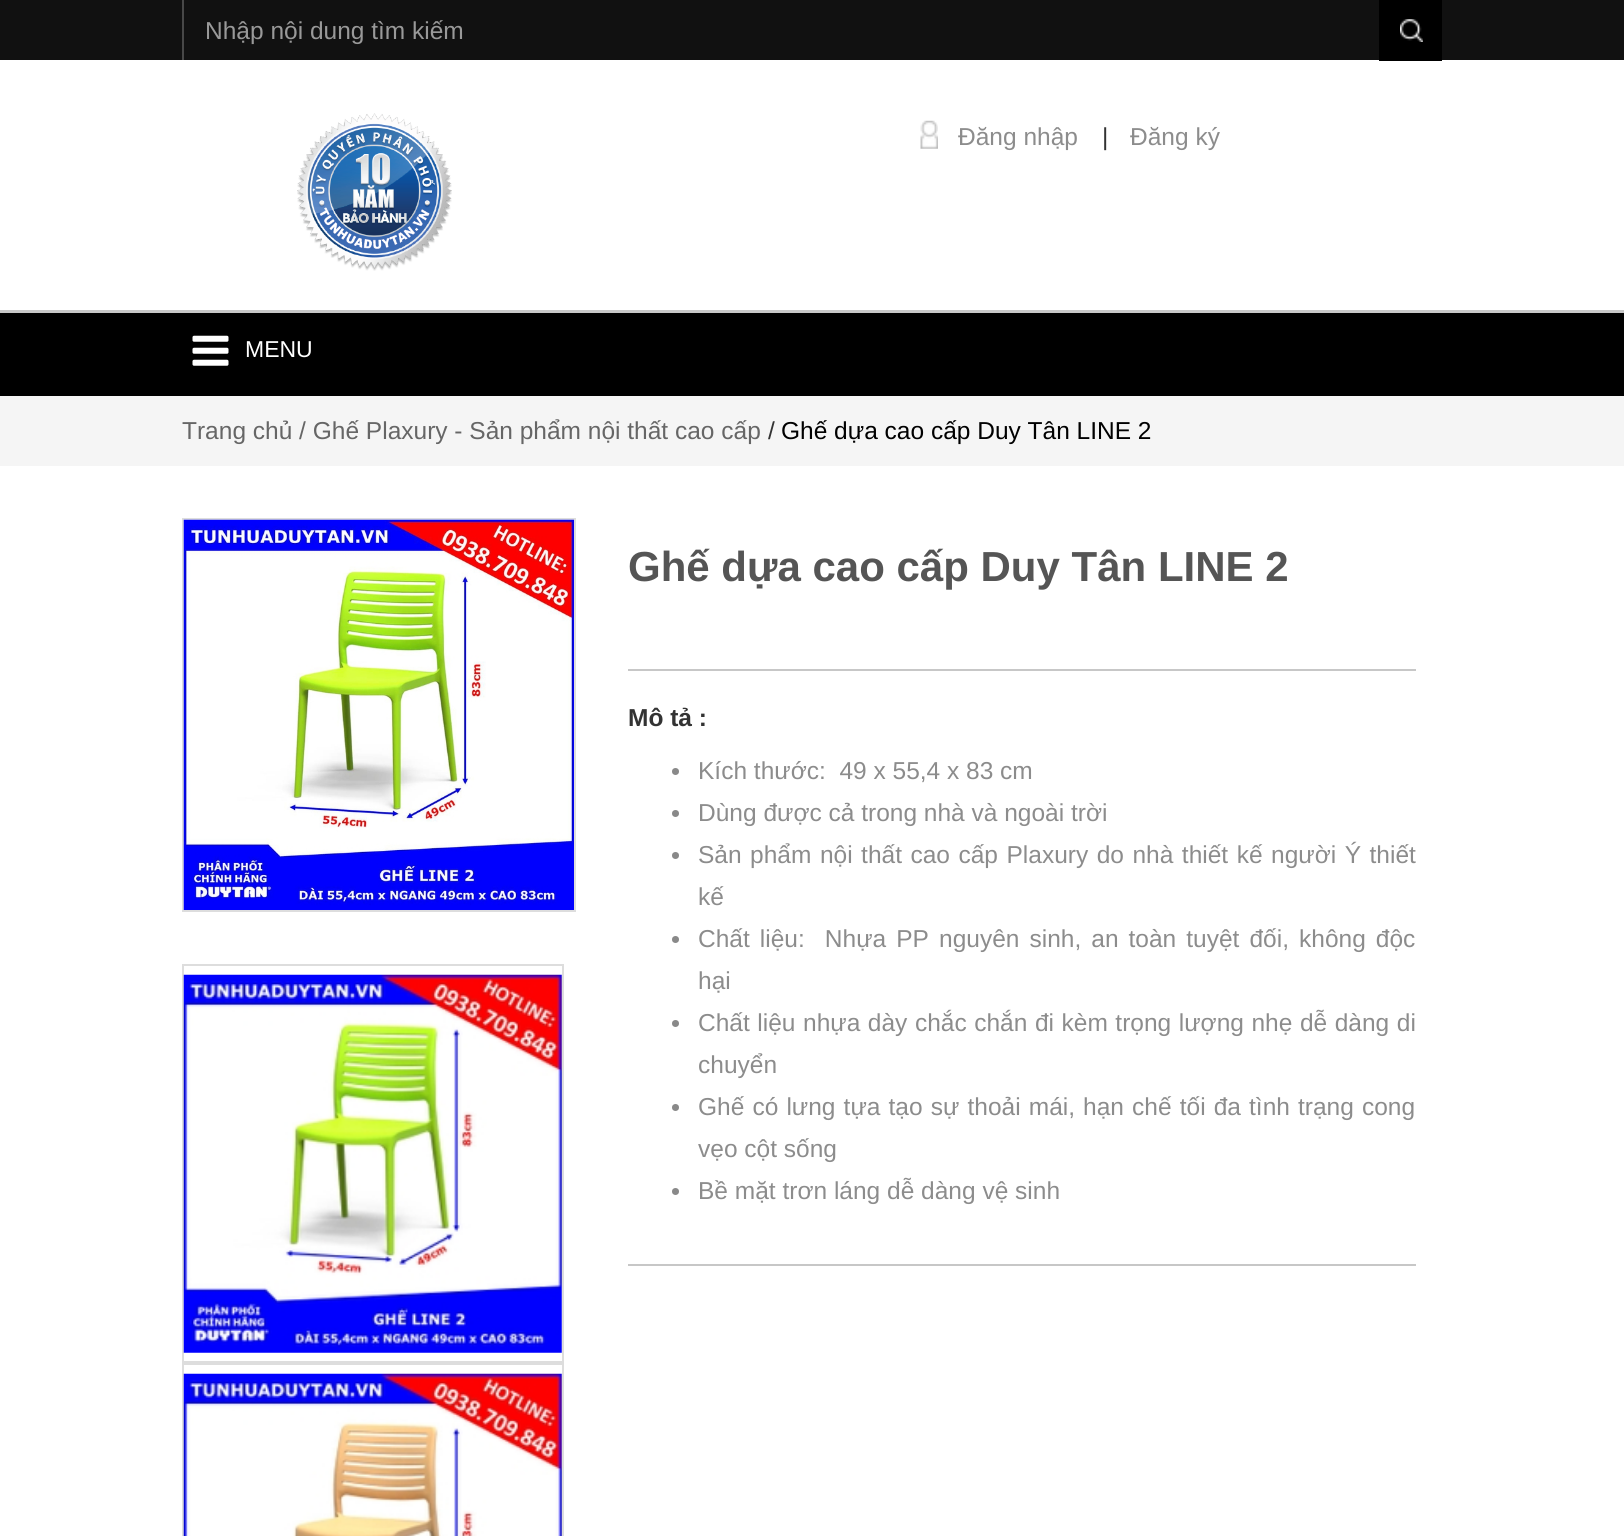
import math
import cairo

surface = cairo.ImageSurface(cairo.Format.RGB24, 1624, 1536)
ctx = cairo.Context(surface)
options = cairo.FontOptions()
options.set_hint_metrics(cairo.HintMetrics.OFF)
options.set_hint_style(cairo.HintStyle.NONE)
ctx.set_font_options(options)
ctx.set_miter_limit(4)


def ink(r, g, b):
    ctx.set_source_rgb(r / 255, g / 255, b / 255)


def write(x, y, s, family, size, color, bold=False, italic=False):
    ctx.select_font_face(family, cairo.FontSlant.ITALIC if italic else cairo.FontSlant.NORMAL, cairo.FontWeight.BOLD if bold else cairo.FontWeight.NORMAL)
    ctx.set_font_size(size)
    ink(*color)
    ctx.move_to(x, y)
    ctx.show_text(s)


def write_spaced(x, y, s, letter, word):
    ctx.move_to(x, y)
    for ch in s:
        ctx.show_text(ch)
        ctx.rel_move_to(letter + word * (ch == ' '), 0)


def block(x, y, w, h, *color):
    ink(*color)
    ctx.rectangle(x, y, w, h)
    ctx.fill()


def paste(path, x, y, w, h):
    ctx.save()
    ctx.set_source_surface(cairo.ImageSurface.create_from_png(path), x, y)
    ctx.rectangle(x, y, w, h)
    ctx.fill()
    ctx.restore()


s1 = dict(family="Liberation Sans", size=24.5, color=(153, 153, 153))
s2 = dict(family="Liberation Sans", size=24.5, color=(140, 140, 140))
s3 = dict(family="Liberation Sans", size=24.5, color=(51, 51, 51))
s4 = dict(family="Liberation Sans", size=23, color=(255, 255, 255))
s5 = dict(family="Liberation Sans", size=24.5, color=(102, 102, 102))
s6 = dict(family="Liberation Sans", size=24.5, color=(0, 0, 0))
s7 = dict(family="Liberation Sans", size=42, color=(85, 85, 85), bold=True)
s8 = dict(family="Liberation Sans", size=24.5, color=(51, 51, 51), bold=True)

ink(255, 255, 255)
ctx.paint()
block(0, 310, 1624, 3, 199, 199, 199)
block(0, 0, 1624, 60, 17, 17, 17)
block(182, 0, 2, 60, 72, 72, 72)
write(205, 39, "Nhập nội dung tìm kiếm", **s1)
block(1379, 0, 63, 61, 0, 0, 0)
paste("pic1.png", 1400, 19, 23, 23)
paste("pic2.png", 297, 113, 155, 158)
paste("pic3.png", 920, 120, 18, 29)
write(958, 145, "Đăng nhập", **s2)
write(1102, 145, "|", **s3)
write(1130, 145, "Đăng ký", **s2)
block(0, 313, 1624, 83, 0, 0, 0)
paste("pic4.png", 192, 335, 37, 31)
write(245, 357, "MENU", **s4)
block(0, 396, 1624, 70, 245, 245, 245)
write(182, 439, "Trang chủ / Ghế Plaxury - Sản phẩm nội thất cao cấp", **s5)
write(768, 439, "/", **s3)
write(781, 439, "Ghế dựa cao cấp Duy Tân LINE 2", **s6)
ctx.rectangle(183, 519, 392, 392)
ink(221, 221, 221)
ctx.stroke()
paste("pic5.png", 183, 519, 391, 391)
ctx.rectangle(183, 965, 380, 397)
ctx.stroke()
paste("pic6.png", 183, 974, 379, 379)
ctx.rectangle(183, 1364, 380, 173)
ctx.stroke()
paste("pic7.png", 183, 1373, 379, 163)
block(628, 1264, 788, 2, 199, 199, 199)
write(628, 581, "Ghế dựa cao cấp Duy Tân LINE 2", **s7)
block(628, 669, 788, 2, 199, 199, 199)
write(628, 726, "Mô tả :", **s8)
ink(137, 137, 137)
ctx.new_path()
ctx.arc(675.5, 771.5, 3.5, 0, 2 * math.pi)
ctx.fill()
write(698, 779, "Kích thước:  49 x 55,4 x 83 cm", **s2)
ink(137, 137, 137)
ctx.new_path()
ctx.arc(675.5, 813.5, 3.5, 0, 2 * math.pi)
ctx.fill()
write(698, 821, "Dùng được cả trong nhà và ngoài trời", **s2)
ink(137, 137, 137)
ctx.new_path()
ctx.arc(675.5, 855.5, 3.5, 0, 2 * math.pi)
ctx.fill()
ink(140, 140, 140)
write_spaced(698, 863, "Sản phẩm nội thất cao cấp Plaxury do nhà thiết kế người Ý thiết", 0, 1.7)
write(698, 905, "kế", **s2)
ink(137, 137, 137)
ctx.new_path()
ctx.arc(675.5, 939.5, 3.5, 0, 2 * math.pi)
ctx.fill()
ink(140, 140, 140)
write_spaced(698, 947, "Chất liệu:  Nhựa PP nguyên sinh, an toàn tuyệt đối, không độc", 0, 3.25)
write(698, 989, "hại", **s2)
ink(137, 137, 137)
ctx.new_path()
ctx.arc(675.5, 1023.5, 3.5, 0, 2 * math.pi)
ctx.fill()
ink(140, 140, 140)
write_spaced(698, 1031, "Chất liệu nhựa dày chắc chắn đi kèm trọng lượng nhẹ dễ dàng di", 0, 0.75)
write(698, 1073, "chuyển", **s2)
ink(137, 137, 137)
ctx.new_path()
ctx.arc(675.5, 1107.5, 3.5, 0, 2 * math.pi)
ctx.fill()
ink(140, 140, 140)
write_spaced(698, 1115, "Ghế có lưng tựa tạo sự thoải mái, hạn chế tối đa tình trạng cong", 0, 1.3)
write(698, 1157, "vẹo cột sống", **s2)
ink(137, 137, 137)
ctx.new_path()
ctx.arc(675.5, 1191.5, 3.5, 0, 2 * math.pi)
ctx.fill()
write(698, 1199, "Bề mặt trơn láng dễ dàng vệ sinh", **s2)
surface.write_to_png("screenshot.png")
